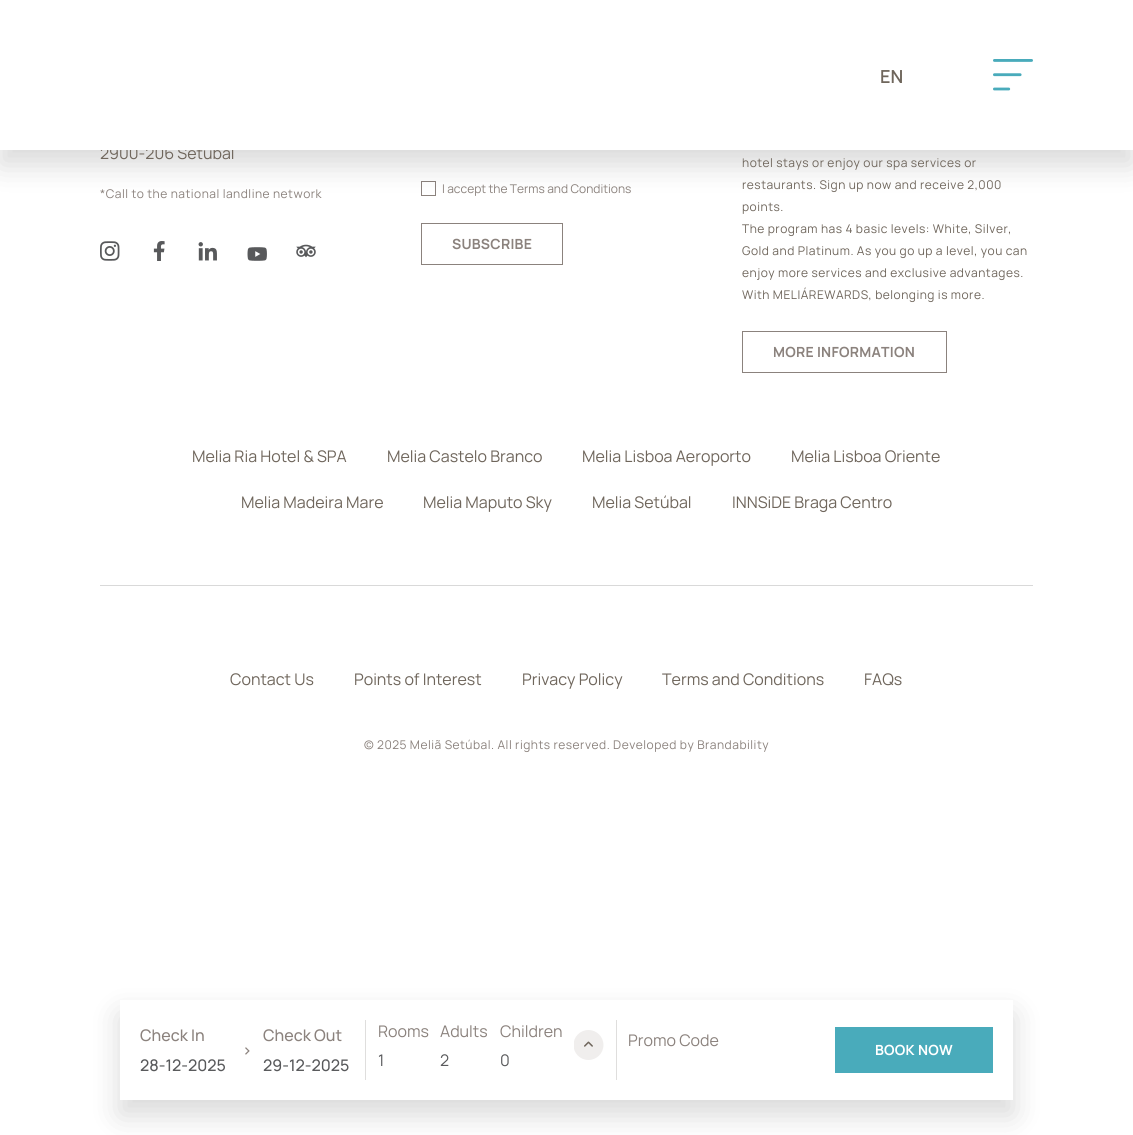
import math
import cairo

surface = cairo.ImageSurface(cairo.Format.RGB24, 1133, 1135)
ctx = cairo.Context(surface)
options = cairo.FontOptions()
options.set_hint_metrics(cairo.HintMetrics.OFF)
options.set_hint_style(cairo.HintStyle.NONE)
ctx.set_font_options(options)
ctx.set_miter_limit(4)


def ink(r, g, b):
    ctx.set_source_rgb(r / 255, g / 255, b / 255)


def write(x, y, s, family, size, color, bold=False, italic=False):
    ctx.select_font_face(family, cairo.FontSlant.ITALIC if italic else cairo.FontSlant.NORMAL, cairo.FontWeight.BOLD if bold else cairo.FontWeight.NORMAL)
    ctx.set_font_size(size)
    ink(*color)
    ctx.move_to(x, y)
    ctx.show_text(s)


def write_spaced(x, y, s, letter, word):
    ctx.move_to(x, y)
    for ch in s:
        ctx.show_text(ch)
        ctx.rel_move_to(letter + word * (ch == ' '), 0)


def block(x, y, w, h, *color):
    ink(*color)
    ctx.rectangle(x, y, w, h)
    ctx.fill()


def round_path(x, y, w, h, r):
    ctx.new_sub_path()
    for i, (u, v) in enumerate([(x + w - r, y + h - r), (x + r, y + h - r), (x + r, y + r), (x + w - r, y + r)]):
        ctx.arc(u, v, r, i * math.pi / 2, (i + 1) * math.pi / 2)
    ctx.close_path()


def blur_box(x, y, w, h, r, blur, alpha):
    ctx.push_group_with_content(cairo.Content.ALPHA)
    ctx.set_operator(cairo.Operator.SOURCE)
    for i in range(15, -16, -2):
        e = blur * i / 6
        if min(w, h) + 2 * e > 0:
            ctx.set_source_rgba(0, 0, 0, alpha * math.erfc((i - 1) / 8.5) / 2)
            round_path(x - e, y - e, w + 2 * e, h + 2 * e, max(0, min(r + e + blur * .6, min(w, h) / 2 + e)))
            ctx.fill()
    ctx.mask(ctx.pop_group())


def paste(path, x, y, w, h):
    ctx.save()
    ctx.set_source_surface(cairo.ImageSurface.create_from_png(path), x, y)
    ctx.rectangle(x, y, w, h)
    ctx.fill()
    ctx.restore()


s1 = dict(family="Manrope", size=16, color=(111, 102, 92))
s2 = dict(family="Manrope SemiBold", size=18, color=(111, 102, 92))
s3 = dict(family="Manrope", size=12, color=(139, 130, 125))
s4 = dict(family="Manrope Medium", size=16, color=(139, 130, 125))
s5 = dict(family="Manrope Medium", size=16, color=(88, 89, 91))
s6 = dict(family="Manrope", size=16, color=(139, 130, 125))
s7 = dict(family="Manrope", size=16, color=(88, 89, 91))

ink(255, 255, 255)
ctx.paint()
ctx.rectangle(421.5, 181.5, 14, 14)
ink(139, 130, 125)
ctx.set_line_width(1)
ctx.stroke()
ink(0, 0, 0)
blur_box(0, 15, 1133, 150, 0, 15, 0.15)
write(100, 159, "2900-206 Setúbal", **s1)
block(0, 0, 1133, 150, 255, 255, 255)
write(880, 83, "EN", **s2)
paste("pic1.png", 993, 59, 40, 32)
ctx.select_font_face("Manrope")
ctx.set_font_size(12)
ink(139, 130, 125)
write_spaced(100, 198, "*Call to the national landline network", 0.5, 0)
paste("pic2.png", 100, 241, 20, 20)
paste("pic3.png", 153, 241, 12, 20)
paste("pic4.png", 198, 242, 19, 19)
paste("pic5.png", 247, 247, 20, 14)
paste("pic6.png", 296, 244, 20, 14)
write(442, 193, "I accept the Terms and Conditions", **s3)
ctx.rectangle(421.5, 223.5, 141, 41)
ctx.stroke()
ctx.select_font_face("Manrope", cairo.FontSlant.NORMAL, cairo.FontWeight.BOLD)
ctx.set_font_size(14)
write_spaced(452, 249, "SUBSCRIBE", 0.25, 0)
ctx.select_font_face("Manrope")
ctx.set_font_size(12)
ink(111, 102, 92)
write_spaced(742, 167, "hotel stays or enjoy our spa services or", 0.5, 0)
write_spaced(742, 189, "restaurants. Sign up now and receive 2,000", 0.5, 0)
write_spaced(742, 211, "points.", 0.5, 0)
write_spaced(742, 233, "The program has 4 basic levels: White, Silver,", 0.5, 0)
write_spaced(742, 255, "Gold and Platinum. As you go up a level, you can", 0.5, 0)
write_spaced(742, 277, "enjoy more services and exclusive advantages.", 0.5, 0)
write_spaced(742, 299, "With MELIÁREWARDS, belonging is more.", 0.5, 0)
ctx.rectangle(742.5, 331.5, 204, 41)
ink(139, 130, 125)
ctx.stroke()
ctx.select_font_face("Manrope", cairo.FontSlant.NORMAL, cairo.FontWeight.BOLD)
ctx.set_font_size(14)
write_spaced(773, 357, "MORE INFORMATION", 0.25, 0)
block(100, 585, 933, 1, 217, 217, 217)
write(192, 462, "Melia Ria Hotel & SPA", **s1)
write(387, 462, "Melia Castelo Branco", **s1)
write(582, 462, "Melia Lisboa Aeroporto", **s1)
write(791, 462, "Melia Lisboa Oriente", **s1)
write(241, 508, "Melia Madeira Mare", **s1)
write(423, 508, "Melia Maputo Sky", **s1)
write(592, 508, "Melia Setúbal", **s1)
write(732, 508, "INNSiDE Braga Centro", **s1)
write(230, 685, "Contact Us", **s1)
write(354, 685, "Points of Interest", **s1)
write(522, 685, "Privacy Policy", **s1)
write(662, 685, "Terms and Conditions", **s1)
write(864, 685, "FAQs", **s1)
ctx.set_font_size(12)
ink(139, 130, 125)
write_spaced(364, 749, "© 2025 Meliã Setúbal. All rights reserved. Developed by Brandability", 0.5, 0)
ctx.save()
ctx.set_fill_rule(cairo.FillRule.EVEN_ODD)
ctx.new_path()
ctx.move_to(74, 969)
ctx.line_to(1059, 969)
ctx.line_to(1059, 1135)
ctx.line_to(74, 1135)
ctx.close_path()
ctx.move_to(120, 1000)
ctx.line_to(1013, 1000)
ctx.line_to(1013, 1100)
ctx.line_to(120, 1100)
ctx.close_path()
ctx.clip()
ink(0, 0, 0)
blur_box(120, 1015, 893, 100, 0, 15, 0.15)
ctx.restore()
write(140, 1041, "Check In", **s4)
write(140, 1071, "28-12-2025", **s5)
write(263, 1041, "Check Out", **s4)
write(263, 1071, "29-12-2025", **s5)
block(365, 1020, 1, 60, 223, 222, 221)
write(378, 1037, "Rooms", **s6)
write(378, 1066, "1", **s7)
write(440, 1037, "Adults", **s6)
write(440, 1066, "2", **s7)
write(500, 1037, "Children", **s6)
write(500, 1066, "0", **s7)
paste("pic7.png", 574, 1030, 30, 30)
block(616, 1020, 1, 60, 223, 222, 221)
write(628, 1046, "Promo Code", **s6)
write(242, 1056, ">", **s4)
block(835, 1027, 158, 46, 73, 171, 187)
ctx.select_font_face("Manrope", cairo.FontSlant.NORMAL, cairo.FontWeight.BOLD)
ctx.set_font_size(14)
ink(255, 255, 255)
write_spaced(875, 1055, "BOOK NOW", 0.25, 0)
surface.write_to_png("screenshot.png")
